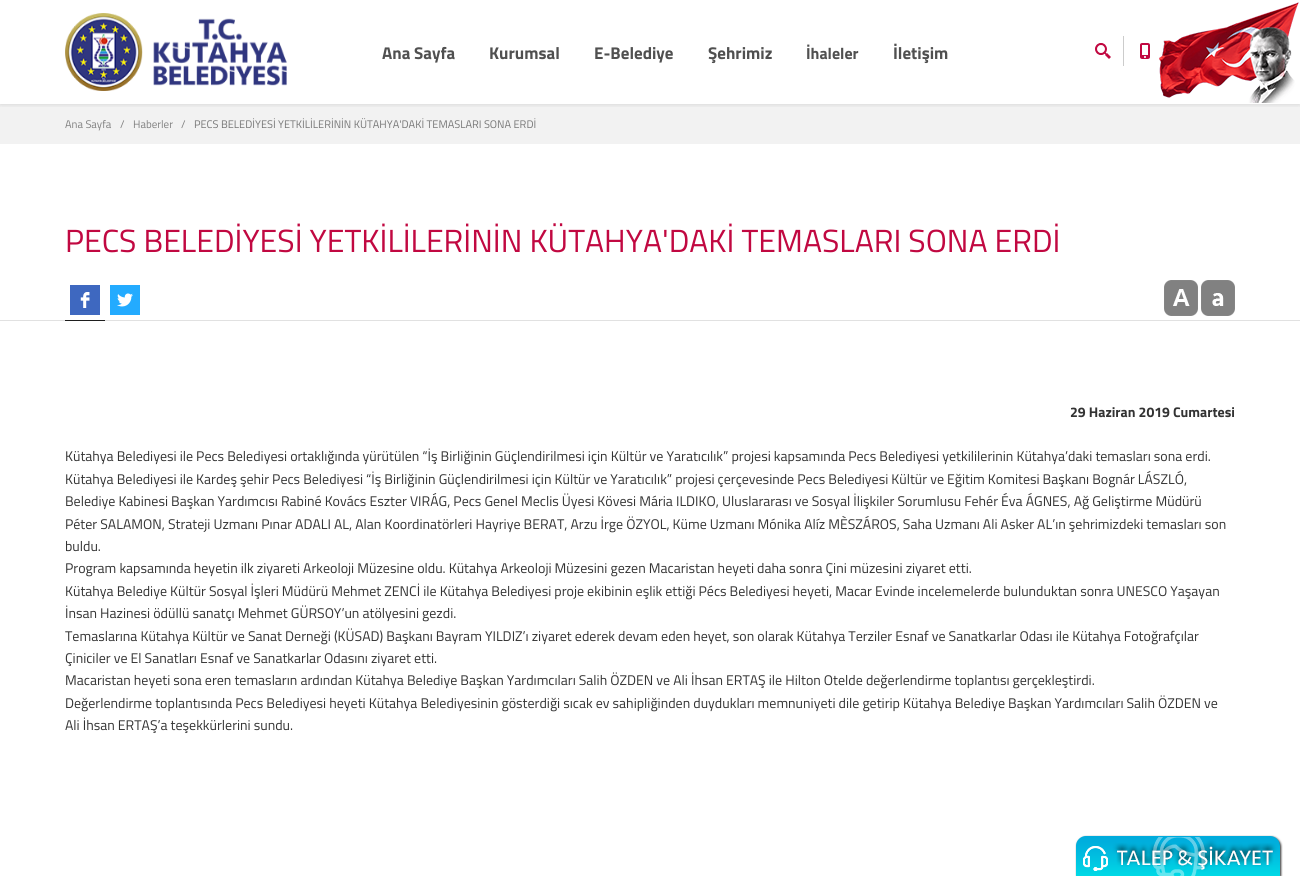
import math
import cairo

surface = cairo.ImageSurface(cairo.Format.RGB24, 1300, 876)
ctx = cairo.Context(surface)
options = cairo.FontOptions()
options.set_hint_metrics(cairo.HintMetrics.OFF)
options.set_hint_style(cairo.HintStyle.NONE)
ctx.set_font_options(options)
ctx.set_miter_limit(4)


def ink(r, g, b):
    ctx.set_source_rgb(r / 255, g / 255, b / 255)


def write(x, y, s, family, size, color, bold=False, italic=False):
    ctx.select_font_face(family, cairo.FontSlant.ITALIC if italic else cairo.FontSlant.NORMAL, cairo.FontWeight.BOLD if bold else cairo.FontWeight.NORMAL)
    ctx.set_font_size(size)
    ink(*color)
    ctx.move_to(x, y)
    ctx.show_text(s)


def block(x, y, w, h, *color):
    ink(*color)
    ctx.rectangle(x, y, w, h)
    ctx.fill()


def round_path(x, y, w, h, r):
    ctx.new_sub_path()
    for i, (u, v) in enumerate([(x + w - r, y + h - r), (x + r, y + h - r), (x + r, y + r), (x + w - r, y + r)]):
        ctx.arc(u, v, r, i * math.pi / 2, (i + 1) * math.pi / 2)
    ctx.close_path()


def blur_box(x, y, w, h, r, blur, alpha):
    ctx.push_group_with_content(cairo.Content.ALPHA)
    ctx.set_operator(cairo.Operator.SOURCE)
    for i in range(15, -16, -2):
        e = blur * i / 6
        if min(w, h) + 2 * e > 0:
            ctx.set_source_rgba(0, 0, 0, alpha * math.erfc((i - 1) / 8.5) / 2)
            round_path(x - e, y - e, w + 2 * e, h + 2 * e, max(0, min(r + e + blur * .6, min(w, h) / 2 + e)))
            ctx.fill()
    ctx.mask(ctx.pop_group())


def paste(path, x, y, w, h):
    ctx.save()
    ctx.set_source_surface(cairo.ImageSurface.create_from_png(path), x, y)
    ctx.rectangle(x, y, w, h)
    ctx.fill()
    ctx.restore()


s1 = dict(family="Titillium Web", size=17, color=(80, 80, 80), bold=True)
s2 = dict(family="Titillium Web", size=16, color=(80, 80, 80), bold=True)
s3 = dict(family="Titillium Web", size=11, color=(127, 127, 127))
s4 = dict(family="Titillium Web", size=11, color=(119, 119, 119))
s5 = dict(family="Titillium Web", size=32, color=(193, 8, 65))
s6 = dict(family="Titillium Web", size=14, color=(51, 51, 51), bold=True)
s7 = dict(family="Titillium Web", size=14, color=(51, 51, 51))

ink(255, 255, 255)
ctx.paint()
block(0, 104, 1300, 40, 242, 242, 242)
ctx.save()
ctx.rectangle(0, 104, 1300, 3)
ctx.clip()
ink(0, 0, 0)
blur_box(0, 0, 1300, 104, 0, 2.5, 0.15)
ctx.restore()
paste("pic1.png", 1159, 2, 140, 101)
paste("pic2.png", 65, 13, 222, 78)
write(382, 59, "Ana Sayfa", **s1)
write(489, 59, "Kurumsal", **s1)
write(594, 59, "E-Belediye", **s1)
write(708, 59, "Şehrimiz", **s1)
write(806, 59, "İhaleler", **s2)
write(893, 59, "İletişim", **s1)
block(1123, 36, 1, 30, 204, 204, 204)
paste("pic3.png", 1095, 43, 16, 16)
paste("pic4.png", 1140, 43, 10, 16)
write(65, 128, "Ana Sayfa", **s3)
write(120, 128, "/", **s3)
write(133, 128, "Haberler", **s3)
write(181, 128, "/", **s3)
write(194, 128, "PECS BELEDİYESİ YETKİLİLERİNİN KÜTAHYA'DAKİ TEMASLARI SONA ERDİ", **s4)
block(0, 320, 1300, 1, 225, 225, 225)
write(65, 252, "PECS BELEDİYESİ YETKİLİLERİNİN KÜTAHYA'DAKİ TEMASLARI SONA ERDİ", **s5)
block(70, 285, 30, 30, 62, 104, 192)
paste("pic5.png", 80, 292, 10, 16)
block(110, 285, 30, 30, 35, 171, 255)
paste("pic6.png", 117, 293, 16, 14)
paste("pic7.png", 1164, 280, 34, 36)
paste("pic8.png", 1201, 280, 34, 36)
block(65, 320, 40, 1, 30, 30, 30)
write(1070, 417, "29 Haziran 2019 Cumartesi", **s6)
write(65, 461, "Kütahya Belediyesi ile Pecs Belediyesi ortaklığında yürütülen “İş Birliğinin Güçlendirilmesi için Kültür ve Yaratıcılık” projesi kapsamında Pecs Belediyesi yetkililerinin Kütahya’daki temasları sona erdi.", **s7)
write(65, 484, "Kütahya Belediyesi ile Kardeş şehir Pecs Belediyesi “İş Birliğinin Güçlendirilmesi için Kültür ve Yaratıcılık” projesi çerçevesinde Pecs Belediyesi Kültür ve Eğitim Komitesi Başkanı Bognár LÁSZLÓ,", **s7)
write(65, 506, "Belediye Kabinesi Başkan Yardımcısı Rabiné Kovács Eszter VIRÁG, Pecs Genel Meclis Üyesi Kövesi Mária ILDIKO, Uluslararası ve Sosyal İlişkiler Sorumlusu Fehér Éva ÁGNES, Ağ Geliştirme Müdürü", **s7)
write(65, 529, "Péter SALAMON, Strateji Uzmanı Pınar ADALI AL, Alan Koordinatörleri Hayriye BERAT, Arzu İrge ÖZYOL, Küme Uzmanı Mónika Alíz MÈSZÁROS, Saha Uzmanı Ali Asker AL’ın şehrimizdeki temasları son", **s7)
write(65, 551, "buldu.", **s7)
write(65, 573, "Program kapsamında heyetin ilk ziyareti Arkeoloji Müzesine oldu. Kütahya Arkeoloji Müzesini gezen Macaristan heyeti daha sonra Çini müzesini ziyaret etti.", **s7)
write(65, 596, "Kütahya Belediye Kültür Sosyal İşleri Müdürü Mehmet ZENCİ ile Kütahya Belediyesi proje ekibinin eşlik ettiği Pécs Belediyesi heyeti, Macar Evinde incelemelerde bulunduktan sonra UNESCO Yaşayan", **s7)
write(65, 618, "İnsan Hazinesi ödüllü sanatçı Mehmet GÜRSOY’un atölyesini gezdi.", **s7)
write(65, 641, "Temaslarına Kütahya Kültür ve Sanat Derneği (KÜSAD) Başkanı Bayram YILDIZ’ı ziyaret ederek devam eden heyet, son olarak Kütahya Terziler Esnaf ve Sanatkarlar Odası ile Kütahya Fotoğrafçılar", **s7)
write(65, 663, "Çiniciler ve El Sanatları Esnaf ve Sanatkarlar Odasını ziyaret etti.", **s7)
write(65, 685, "Macaristan heyeti sona eren temasların ardından Kütahya Belediye Başkan Yardımcıları Salih ÖZDEN ve Ali İhsan ERTAŞ ile Hilton Otelde değerlendirme toplantısı gerçekleştirdi.", **s7)
write(65, 708, "Değerlendirme toplantısında Pecs Belediyesi heyeti Kütahya Belediyesinin gösterdiği sıcak ev sahipliğinden duydukları memnuniyeti dile getirip Kütahya Belediye Başkan Yardımcıları Salih ÖZDEN ve", **s7)
write(65, 730, "Ali İhsan ERTAŞ’a teşekkürlerini sundu.", **s7)
paste("pic9.png", 1075, 835, 208, 41)
surface.write_to_png("screenshot.png")
